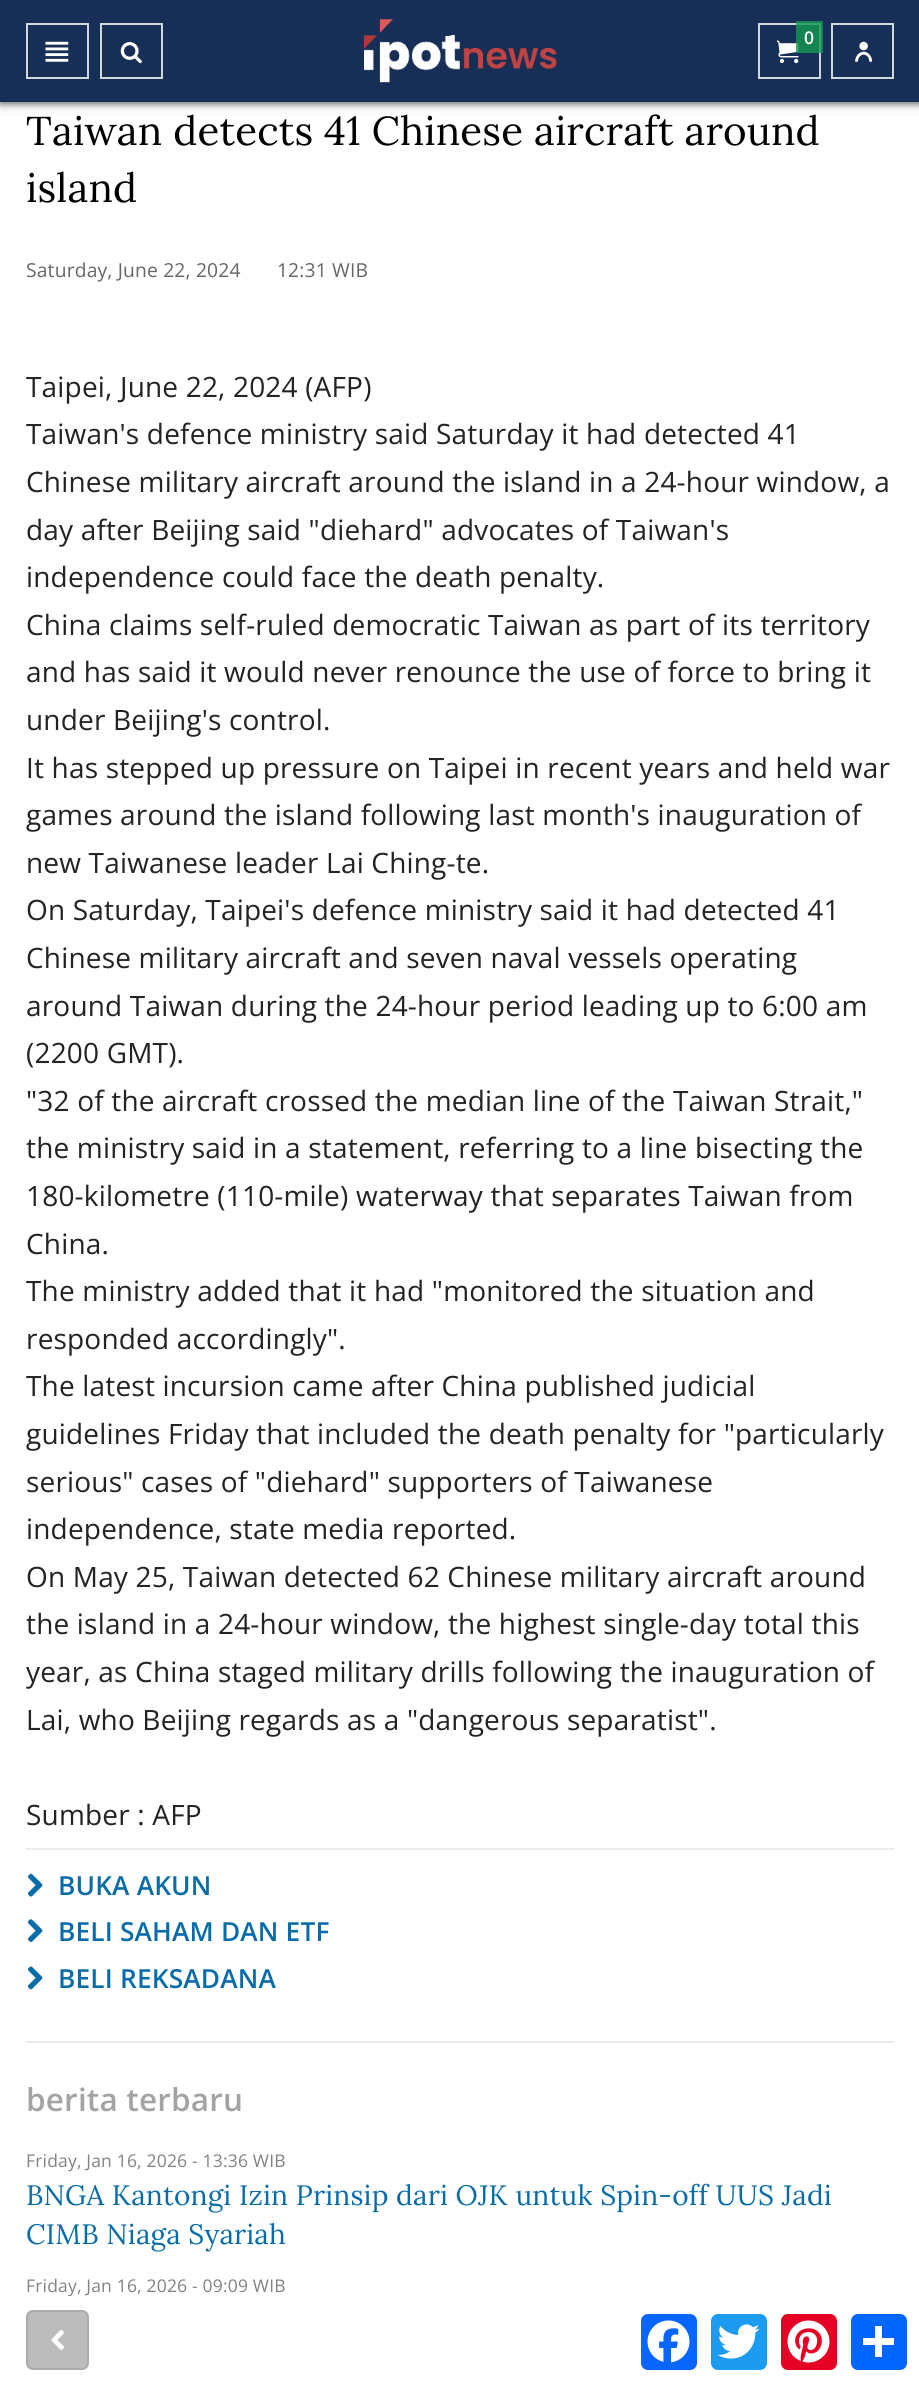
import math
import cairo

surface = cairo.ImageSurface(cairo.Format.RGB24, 919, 2383)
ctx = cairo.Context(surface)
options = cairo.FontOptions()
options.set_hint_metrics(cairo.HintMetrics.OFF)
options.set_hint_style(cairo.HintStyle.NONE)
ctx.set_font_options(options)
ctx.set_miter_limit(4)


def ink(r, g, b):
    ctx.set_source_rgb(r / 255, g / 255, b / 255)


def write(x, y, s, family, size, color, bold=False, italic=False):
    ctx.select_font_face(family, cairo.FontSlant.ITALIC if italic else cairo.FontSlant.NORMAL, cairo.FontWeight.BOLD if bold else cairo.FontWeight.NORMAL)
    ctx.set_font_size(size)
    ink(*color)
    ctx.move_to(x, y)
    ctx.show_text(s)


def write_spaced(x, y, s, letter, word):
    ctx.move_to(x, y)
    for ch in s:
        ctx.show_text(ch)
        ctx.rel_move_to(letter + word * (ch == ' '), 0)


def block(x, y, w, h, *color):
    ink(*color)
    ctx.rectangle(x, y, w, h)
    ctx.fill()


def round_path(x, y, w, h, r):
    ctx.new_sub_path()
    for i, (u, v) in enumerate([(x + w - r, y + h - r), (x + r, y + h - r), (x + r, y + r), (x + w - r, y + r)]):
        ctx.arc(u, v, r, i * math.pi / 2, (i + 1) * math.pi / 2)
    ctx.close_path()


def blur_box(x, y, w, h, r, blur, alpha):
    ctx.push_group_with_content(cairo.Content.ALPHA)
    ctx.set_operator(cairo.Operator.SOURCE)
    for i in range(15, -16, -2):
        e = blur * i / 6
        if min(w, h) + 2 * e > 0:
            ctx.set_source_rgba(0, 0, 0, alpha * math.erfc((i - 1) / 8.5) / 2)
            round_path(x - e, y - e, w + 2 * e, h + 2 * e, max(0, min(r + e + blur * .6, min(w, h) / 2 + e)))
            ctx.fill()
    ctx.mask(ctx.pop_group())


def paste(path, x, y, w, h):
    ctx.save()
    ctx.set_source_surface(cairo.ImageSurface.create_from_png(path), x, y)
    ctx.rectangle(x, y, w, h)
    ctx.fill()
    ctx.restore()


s1 = dict(family="Open Sans SemiBold", size=17.5, color=(255, 255, 255))

ink(255, 255, 255)
ctx.paint()
ink(31, 31, 31)
blur_box(0, 0, 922, 103, 0, 4.5, 0.83)
block(0, 0, 919, 102, 23, 46, 86)
ctx.rectangle(27, 24, 61, 54)
ink(207, 217, 219)
ctx.stroke()
paste("pic1.png", 45, 41, 24, 21)
ctx.rectangle(101, 24, 61, 54)
ctx.stroke()
paste("pic2.png", 120, 42, 22, 22)
paste("pic3.png", 364, 19, 193, 64)
ctx.rectangle(759, 24, 61, 54)
ctx.stroke()
paste("pic4.png", 777, 40, 22, 24)
ctx.set_source_rgba(0.075, 0.608, 0.318, 0.8)
ctx.rectangle(796, 21, 27, 32)
ctx.fill()
write(804, 44, "0", **s1)
ctx.rectangle(832, 24, 61, 54)
ink(207, 217, 219)
ctx.stroke()
paste("pic5.png", 855, 41, 18, 21)
ctx.select_font_face("Lora")
ctx.set_font_size(40.25)
ink(0, 0, 0)
write_spaced(26, 145, "Taiwan detects 41 Chinese aircraft around", 0.18, 0)
write_spaced(26, 202, "island", 0.18, 0)
ctx.select_font_face("Open Sans")
ctx.set_font_size(19.25)
ink(102, 102, 102)
write_spaced(26, 277, "Saturday, June 22, 2024       12:31 WIB", 0.18, 0)
ctx.set_font_size(28)
ink(35, 35, 35)
write_spaced(26, 397, "Taipei, June 22, 2024 (AFP)", 0.18, 0)
write_spaced(26, 444, "Taiwan's defence ministry said Saturday it had detected 41", 0.18, 0)
write_spaced(26, 492, "Chinese military aircraft around the island in a 24-hour window, a", 0.18, 0)
write_spaced(26, 540, "day after Beijing said \"diehard\" advocates of Taiwan's", 0.18, 0)
write_spaced(26, 587, "independence could face the death penalty.", 0.18, 0)
write_spaced(26, 635, "China claims self-ruled democratic Taiwan as part of its territory", 0.18, 0)
write_spaced(26, 682, "and has said it would never renounce the use of force to bring it", 0.18, 0)
write_spaced(26, 730, "under Beijing's control.", 0.18, 0)
write_spaced(26, 778, "It has stepped up pressure on Taipei in recent years and held war", 0.18, 0)
write_spaced(26, 825, "games around the island following last month's inauguration of", 0.18, 0)
write_spaced(26, 873, "new Taiwanese leader Lai Ching-te.", 0.18, 0)
write_spaced(26, 920, "On Saturday, Taipei's defence ministry said it had detected 41", 0.18, 0)
write_spaced(26, 968, "Chinese military aircraft and seven naval vessels operating", 0.18, 0)
write_spaced(26, 1016, "around Taiwan during the 24-hour period leading up to 6:00 am", 0.18, 0)
write_spaced(26, 1063, "(2200 GMT).", 0.18, 0)
write_spaced(26, 1111, "\"32 of the aircraft crossed the median line of the Taiwan Strait,\"", 0.18, 0)
write_spaced(26, 1158, "the ministry said in a statement, referring to a line bisecting the", 0.18, 0)
write_spaced(26, 1206, "180-kilometre (110-mile) waterway that separates Taiwan from", 0.18, 0)
write_spaced(26, 1254, "China.", 0.18, 0)
write_spaced(26, 1301, "The ministry added that it had \"monitored the situation and", 0.18, 0)
write_spaced(26, 1349, "responded accordingly\".", 0.18, 0)
write_spaced(26, 1396, "The latest incursion came after China published judicial", 0.18, 0)
write_spaced(26, 1444, "guidelines Friday that included the death penalty for \"particularly", 0.18, 0)
write_spaced(26, 1492, "serious\" cases of \"diehard\" supporters of Taiwanese", 0.18, 0)
write_spaced(26, 1539, "independence, state media reported.", 0.18, 0)
write_spaced(26, 1587, "On May 25, Taiwan detected 62 Chinese military aircraft around", 0.18, 0)
write_spaced(26, 1634, "the island in a 24-hour window, the highest single-day total this", 0.18, 0)
write_spaced(26, 1682, "year, as China staged military drills following the inauguration of", 0.18, 0)
write_spaced(26, 1730, "Lai, who Beijing regards as a \"dangerous separatist\".", 0.18, 0)
write_spaced(26, 1825, "Sumber : AFP", 0.18, 0)
block(26, 1848, 868, 2, 230, 235, 237)
paste("pic6.png", 28, 1873, 15, 24)
ctx.select_font_face("Open Sans SemiBold")
ctx.set_font_size(26.25)
ink(8, 108, 171)
write_spaced(58, 1895, "BUKA AKUN", 0.18, 0)
paste("pic7.png", 28, 1919, 15, 23)
write_spaced(58, 1941, "BELI SAHAM DAN ETF", 0.18, 0)
paste("pic8.png", 28, 1966, 15, 24)
write_spaced(58, 1988, "BELI REKSADANA", 0.18, 0)
ctx.select_font_face("Open Sans")
ctx.set_font_size(17.5)
ink(130, 130, 130)
write_spaced(26, 2292, "Friday, Jan 16, 2026 - 09:09 WIB", 0.18, 0)
ctx.set_source_rgba(1, 1, 1, 0.8)
ctx.rectangle(68, 2296, 3, 1)
ctx.fill()
ink(188, 188, 188)
round_path(27, 2311, 61, 58, 6)
ctx.fill_preserve()
ink(172, 172, 172)
ctx.stroke()
paste("pic9.png", 51, 2330, 13, 20)
ink(8, 102, 255)
round_path(641, 2314, 56, 56, 7)
ctx.fill()
paste("pic10.png", 647, 2320, 43, 43)
ink(29, 155, 240)
round_path(711, 2314, 56, 56, 7)
ctx.fill()
paste("pic11.png", 717, 2324, 43, 35)
ink(230, 0, 35)
round_path(781, 2314, 56, 56, 7)
ctx.fill()
paste("pic12.png", 787, 2320, 43, 43)
ink(1, 102, 255)
round_path(851, 2314, 56, 56, 7)
ctx.fill()
block(875, 2326, 7, 31, 255, 255, 255)
block(863, 2338, 31, 7, 255, 255, 255)
block(26, 2041, 868, 2, 230, 235, 237)
ctx.select_font_face("Open Sans SemiBold")
ctx.set_font_size(31.5)
ink(163, 163, 163)
write_spaced(26, 2111, "berita terbaru", 0.18, 0)
ctx.select_font_face("Open Sans")
ctx.set_font_size(17.5)
ink(130, 130, 130)
write_spaced(26, 2167, "Friday, Jan 16, 2026 - 13:36 WIB", 0.18, 0)
ctx.select_font_face("Lora")
ctx.set_font_size(28)
ink(8, 108, 171)
write_spaced(26, 2205, "BNGA Kantongi Izin Prinsip dari OJK untuk Spin-off UUS Jadi", 0.18, 0)
write_spaced(26, 2244, "CIMB Niaga Syariah", 0.18, 0)
surface.write_to_png("screenshot.png")
